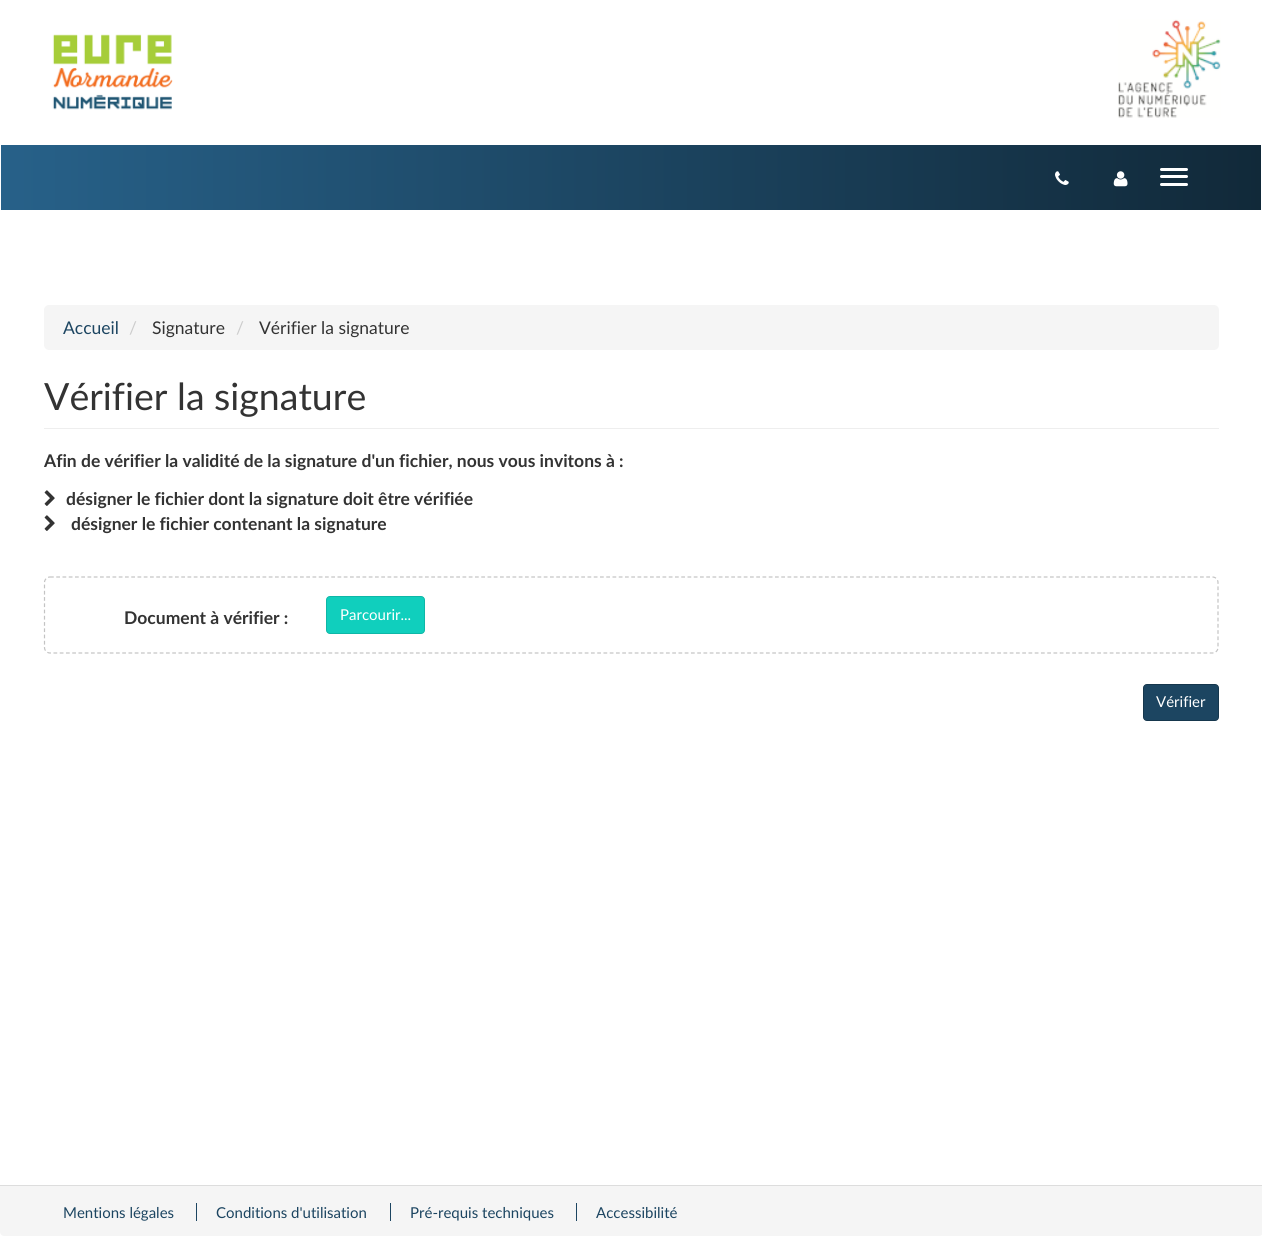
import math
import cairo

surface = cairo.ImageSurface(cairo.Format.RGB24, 1262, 1236)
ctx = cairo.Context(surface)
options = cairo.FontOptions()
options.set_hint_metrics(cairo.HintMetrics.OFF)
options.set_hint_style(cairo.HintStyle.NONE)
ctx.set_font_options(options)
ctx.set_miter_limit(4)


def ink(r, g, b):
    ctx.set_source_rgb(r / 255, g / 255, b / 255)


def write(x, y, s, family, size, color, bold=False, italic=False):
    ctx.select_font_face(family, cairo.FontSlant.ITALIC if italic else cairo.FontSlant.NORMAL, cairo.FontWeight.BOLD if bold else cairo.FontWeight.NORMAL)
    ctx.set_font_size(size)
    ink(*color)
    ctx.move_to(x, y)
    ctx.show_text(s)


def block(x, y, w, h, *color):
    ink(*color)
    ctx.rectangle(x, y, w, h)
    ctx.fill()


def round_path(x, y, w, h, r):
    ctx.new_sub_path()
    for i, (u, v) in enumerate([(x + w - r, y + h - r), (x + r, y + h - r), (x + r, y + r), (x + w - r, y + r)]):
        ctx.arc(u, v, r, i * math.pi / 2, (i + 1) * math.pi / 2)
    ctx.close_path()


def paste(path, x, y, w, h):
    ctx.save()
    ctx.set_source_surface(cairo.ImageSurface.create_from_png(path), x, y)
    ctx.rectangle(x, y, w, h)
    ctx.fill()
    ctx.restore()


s1 = dict(family="Lato", size=17.5, color=(28, 69, 97))
s2 = dict(family="Lato", size=17.5, color=(204, 204, 204))
s3 = dict(family="Lato", size=17.5, color=(51, 51, 51))
s4 = dict(family="Lato", size=37.5, color=(51, 51, 51))
s5 = dict(family="Lato", size=17.5, color=(51, 51, 51), bold=True)
s6 = dict(family="Lato", size=15, color=(255, 255, 255))
s7 = dict(family="Lato", size=15, color=(28, 69, 97))

ink(255, 255, 255)
ctx.paint()
paste("pic1.png", 1118, 19, 103, 99)
paste("pic2.png", 52, 34, 121, 76)
gradient = cairo.LinearGradient(1.2, 178, 1261, 177)
gradient.add_color_stop_rgba(0, 0.153, 0.38, 0.537, 1)
gradient.add_color_stop_rgba(1, 0.067, 0.161, 0.224, 1)
ctx.set_source(gradient)
ctx.rectangle(1, 145, 1260, 65)
ctx.fill()
paste("pic3.png", 1055, 171, 14, 14)
paste("pic4.png", 1113, 171, 15, 16)
ink(255, 255, 255)
round_path(1160, 168, 28, 3, 1.5)
ctx.fill()
round_path(1160, 175, 28, 3, 1.5)
ctx.fill()
round_path(1160, 183, 28, 3, 1.5)
ctx.fill()
ink(245, 245, 245)
round_path(44, 305, 1175, 45, 5)
ctx.fill()
write(63, 334, "Accueil", **s1)
write(129, 334, "/", **s2)
write(152, 334, "Signature", **s3)
write(236, 334, "/", **s2)
write(259, 334, "Vérifier la signature", **s3)
block(44, 428, 1175, 1, 238, 238, 238)
write(44, 410, "Vérifier la signature", **s4)
write(44, 467, "Afin de vérifier la validité de la signature d'un fichier, nous vous invitons à :", **s5)
paste("pic5.png", 44, 490, 11, 16)
write(66, 505, "désigner le fichier dont la signature doit être vérifiée", **s5)
paste("pic5.png", 44, 515, 11, 16)
write(71, 530, "désigner le fichier contenant la signature", **s5)
ctx.new_path()
ctx.move_to(50, 577)
ctx.line_to(1212.5, 577)
ctx.curve_to(1215.5, 577, 1218, 579.5, 1218, 582.5)
ctx.line_to(1218, 647.5)
ctx.curve_to(1218, 650.5, 1215.5, 653, 1212.5, 653)
ctx.line_to(50, 653)
ctx.curve_to(47, 653, 44.5, 650.5, 44.5, 647.5)
ctx.line_to(44.5, 582.5)
ctx.curve_to(44.5, 579.5, 47, 577, 50, 577)
ctx.close_path()
ink(195, 195, 195)
ctx.set_line_width(1.2)
ctx.set_dash([3.75, 2.5])
ctx.stroke()
write(124, 624, "Document à vérifier :", **s5)
ink(16, 207, 189)
round_path(326.5, 596.5, 98, 37, 3.5)
ctx.fill_preserve()
ink(14, 183, 167)
ctx.set_line_width(1)
ctx.set_dash([])
ctx.stroke()
write(340, 620, "Parcourir...", **s6)
ink(28, 69, 97)
round_path(1143.5, 684.5, 75, 36, 3.5)
ctx.fill_preserve()
ink(22, 55, 77)
ctx.stroke()
write(1156, 707, "Vérifier", **s6)
ink(245, 245, 245)
ctx.new_path()
ctx.move_to(0, 1185)
ctx.line_to(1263, 1185)
ctx.line_to(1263, 1232)
ctx.curve_to(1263, 1234, 1261, 1236, 1259, 1236)
ctx.line_to(4, 1236)
ctx.curve_to(2, 1236, 0, 1234, 0, 1232)
ctx.close_path()
ctx.fill()
block(0, 1185, 1262, 1, 221, 221, 221)
write(63, 1218, "Mentions légales", **s7)
write(216, 1218, "Conditions d'utilisation", **s7)
block(196, 1203, 1, 18, 28, 69, 97)
write(410, 1218, "Pré-requis techniques", **s7)
block(390, 1203, 1, 18, 28, 69, 97)
write(596, 1218, "Accessibilité", **s7)
block(576, 1203, 1, 18, 28, 69, 97)
surface.write_to_png("screenshot.png")
